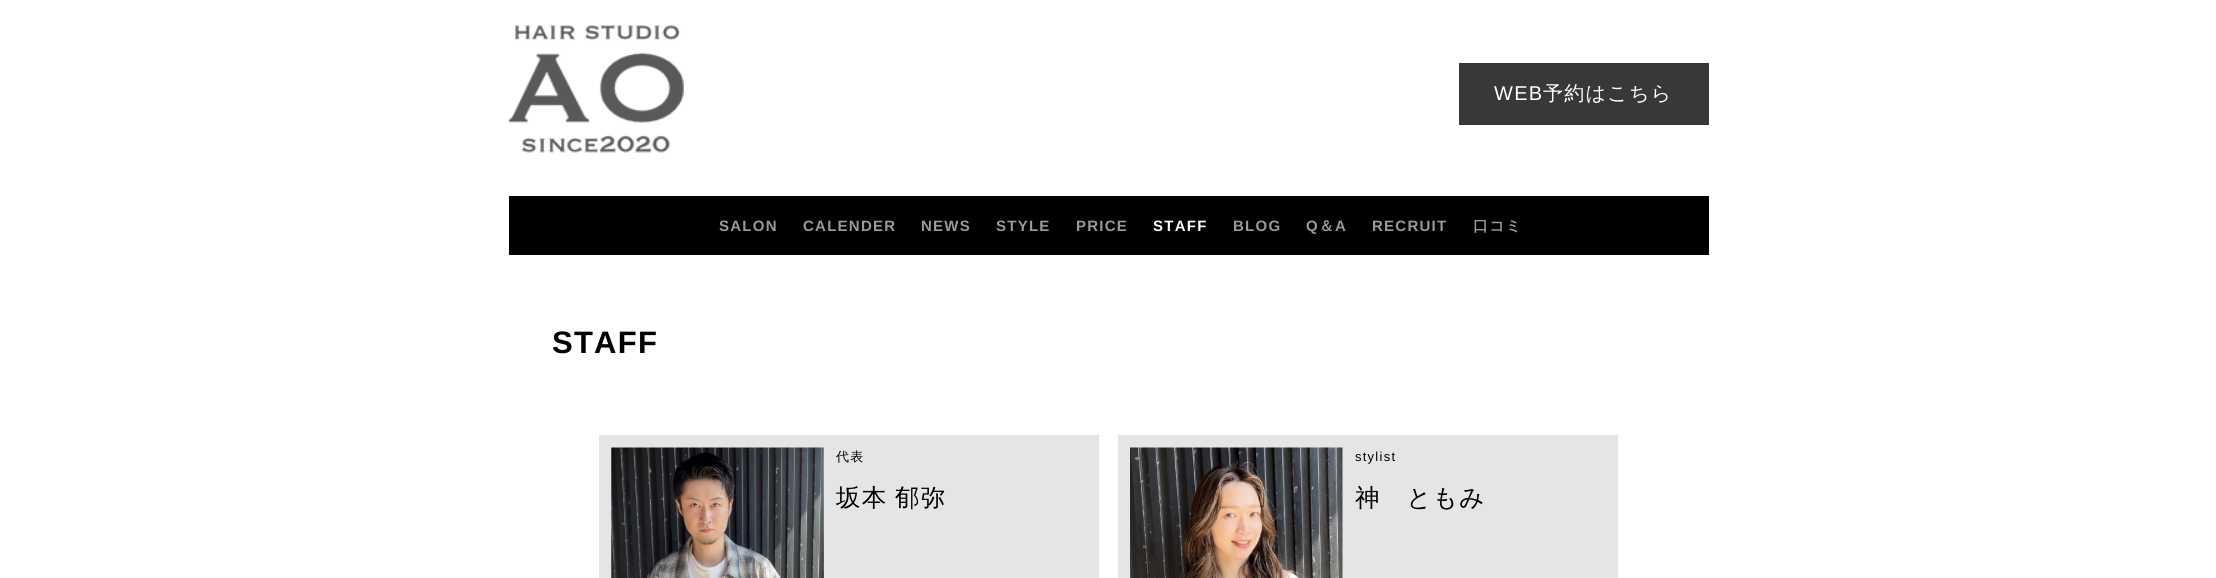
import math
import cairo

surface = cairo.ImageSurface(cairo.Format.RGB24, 2216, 578)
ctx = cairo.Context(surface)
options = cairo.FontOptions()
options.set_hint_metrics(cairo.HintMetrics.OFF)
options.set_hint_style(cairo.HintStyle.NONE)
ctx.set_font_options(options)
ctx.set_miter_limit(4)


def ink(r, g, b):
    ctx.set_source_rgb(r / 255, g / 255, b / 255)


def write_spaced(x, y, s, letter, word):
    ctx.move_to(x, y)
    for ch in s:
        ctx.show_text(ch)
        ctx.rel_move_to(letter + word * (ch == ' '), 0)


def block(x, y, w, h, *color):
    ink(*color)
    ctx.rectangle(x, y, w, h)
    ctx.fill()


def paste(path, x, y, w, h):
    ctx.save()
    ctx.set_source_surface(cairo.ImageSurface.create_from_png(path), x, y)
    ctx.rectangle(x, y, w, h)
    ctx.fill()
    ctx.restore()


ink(255, 255, 255)
ctx.paint()
paste("pic1.png", 508, 25, 176, 128)
block(1459, 63, 250, 62, 56, 56, 56)
ctx.select_font_face("Liberation Sans")
ctx.set_font_size(20)
ink(255, 255, 255)
write_spaced(1494, 100, "WEB", 1.25, 0)
ctx.select_font_face("WenQuanYi Zen Hei Medium")
write_spaced(1543, 100, "予約はこちら", 1.25, 0)
block(509, 196, 1200, 59, 0, 0, 0)
ctx.select_font_face("Liberation Sans", cairo.FontSlant.NORMAL, cairo.FontWeight.BOLD)
ctx.set_font_size(15)
ink(154, 154, 154)
write_spaced(719, 231, "SALON", 1.25, 0)
write_spaced(803, 231, "CALENDER", 1.25, 0)
write_spaced(921, 231, "NEWS", 1.25, 0)
write_spaced(996, 231, "STYLE", 1.25, 0)
write_spaced(1076, 231, "PRICE", 1.25, 0)
ink(255, 255, 255)
write_spaced(1153, 231, "STAFF", 1.25, 0)
ink(154, 154, 154)
write_spaced(1233, 231, "BLOG", 1.25, 0)
write_spaced(1306, 231, "Q", 1.25, 0)
ctx.select_font_face("WenQuanYi Zen Hei", cairo.FontSlant.NORMAL, cairo.FontWeight.BOLD)
write_spaced(1319, 231, "＆", 1.25, 0)
ctx.select_font_face("Liberation Sans", cairo.FontSlant.NORMAL, cairo.FontWeight.BOLD)
write_spaced(1335, 231, "A", 1.25, 0)
write_spaced(1372, 231, "RECRUIT", 1.25, 0)
ctx.select_font_face("WenQuanYi Zen Hei", cairo.FontSlant.NORMAL, cairo.FontWeight.BOLD)
write_spaced(1473, 231, "口コミ", 1.25, 0)
ctx.select_font_face("Liberation Sans", cairo.FontSlant.NORMAL, cairo.FontWeight.BOLD)
ctx.set_font_size(31)
ink(0, 0, 0)
write_spaced(552, 353, "STAFF", 1.25, 0)
block(599, 435, 500, 143, 229, 229, 229)
paste("pic2.png", 611, 447, 213, 131)
ctx.select_font_face("WenQuanYi Zen Hei Medium")
ctx.set_font_size(13)
ink(0, 0, 0)
write_spaced(836, 461, "代表", 1.25, 0)
ctx.set_font_size(24.5)
write_spaced(836, 506, "坂本 郁弥", 1.25, -1)
block(1118, 435, 500, 143, 229, 229, 229)
paste("pic3.png", 1130, 447, 213, 131)
ctx.select_font_face("Liberation Sans")
ctx.set_font_size(13)
ink(0, 0, 0)
write_spaced(1355, 461, "stylist", 1.25, 0)
ctx.select_font_face("WenQuanYi Zen Hei Medium")
ctx.set_font_size(24.5)
write_spaced(1355, 506, "神　ともみ", 1.25, 0)
surface.write_to_png("screenshot.png")
